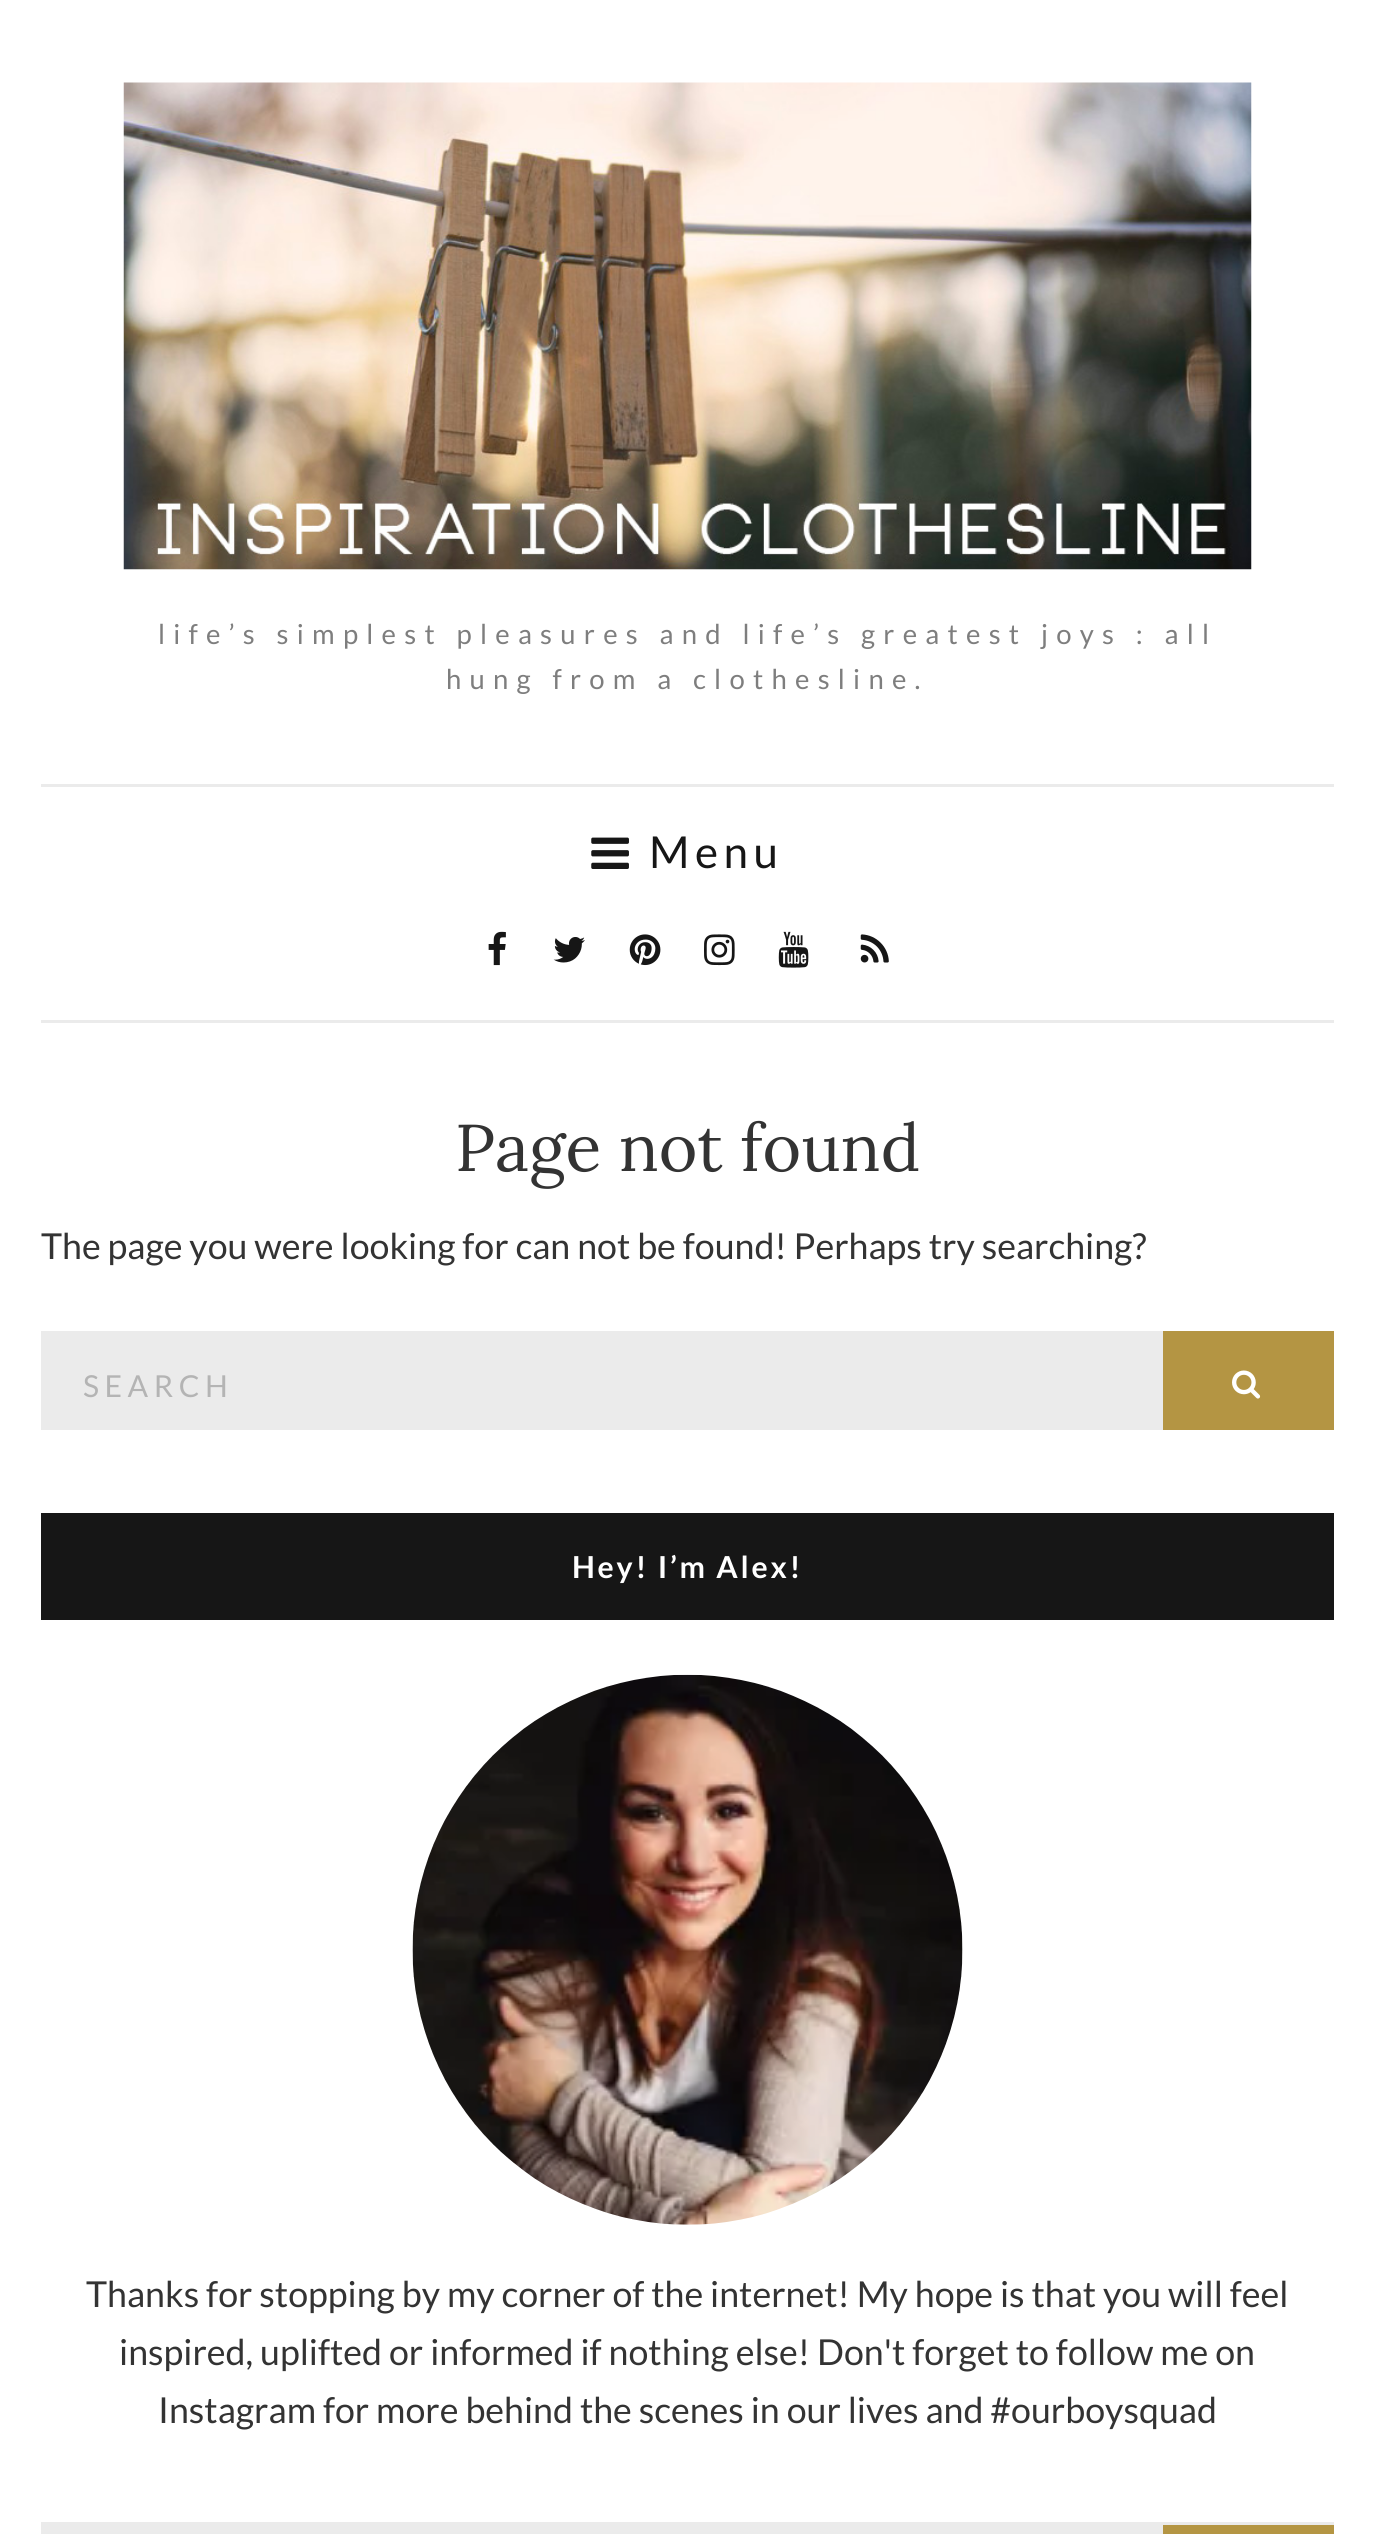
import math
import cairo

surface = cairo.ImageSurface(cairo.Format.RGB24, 1373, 2534)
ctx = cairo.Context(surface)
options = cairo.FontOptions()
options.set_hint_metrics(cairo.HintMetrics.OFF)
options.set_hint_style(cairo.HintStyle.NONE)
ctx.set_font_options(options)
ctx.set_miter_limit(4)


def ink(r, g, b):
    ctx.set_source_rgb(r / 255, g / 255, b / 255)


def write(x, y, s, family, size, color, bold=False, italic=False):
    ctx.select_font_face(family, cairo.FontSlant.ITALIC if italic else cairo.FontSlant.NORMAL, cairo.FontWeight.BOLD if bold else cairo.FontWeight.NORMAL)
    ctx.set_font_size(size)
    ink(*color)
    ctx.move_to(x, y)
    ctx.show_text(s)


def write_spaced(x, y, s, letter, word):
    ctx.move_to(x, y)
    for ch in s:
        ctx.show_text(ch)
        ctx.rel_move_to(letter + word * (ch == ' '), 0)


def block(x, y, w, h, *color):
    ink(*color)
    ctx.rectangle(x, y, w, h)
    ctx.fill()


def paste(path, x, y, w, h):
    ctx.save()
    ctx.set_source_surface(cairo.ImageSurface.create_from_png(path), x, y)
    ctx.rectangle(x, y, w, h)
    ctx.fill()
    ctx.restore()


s1 = dict(family="Lora", size=66, color=(51, 51, 51))
s2 = dict(family="Lato", size=35.75, color=(51, 51, 51))

ink(255, 255, 255)
ctx.paint()
paste("pic1.png", 123, 82, 1129, 488)
ctx.select_font_face("Lato")
ctx.set_font_size(27.5)
ink(126, 126, 126)
write_spaced(158, 644, "life’s simplest pleasures and life’s greatest joys : all", 8.25, 0)
write_spaced(446, 689, "hung from a clothesline.", 8.25, 0)
block(41, 784, 1293, 3, 235, 235, 235)
block(41, 1020, 1293, 3, 235, 235, 235)
paste("pic2.png", 591, 837, 38, 32)
ctx.set_font_size(44)
ink(22, 22, 22)
write_spaced(649, 868, "Menu", 5.5, 0)
paste("pic3.png", 488, 931, 18, 35)
paste("pic4.png", 553, 937, 32, 26)
paste("pic5.png", 629, 934, 32, 32)
paste("pic6.png", 704, 934, 31, 32)
paste("pic7.png", 778, 931, 31, 37)
paste("pic8.png", 860, 934, 29, 29)
write(455, 1171, "Page not found", **s1)
write(41, 1259, "The page you were looking for can not be found! Perhaps try searching?", **s2)
block(41, 1331, 1122, 99, 235, 235, 235)
ctx.set_font_size(30.25)
ink(180, 180, 180)
write_spaced(83, 1397, "SEARCH", 5.5, 0)
block(1163, 1331, 171, 99, 180, 149, 67)
paste("pic9.png", 1232, 1370, 29, 29)
block(41, 2522, 1293, 3, 235, 235, 235)
block(41, 1513, 1293, 107, 22, 22, 22)
ctx.select_font_face("Lato", cairo.FontSlant.NORMAL, cairo.FontWeight.BOLD)
ink(255, 255, 255)
write_spaced(572, 1578, "Hey! I’m Alex!", 2.75, 0)
paste("pic10.png", 412, 1674, 551, 551)
write(86, 2307, "Thanks for stopping by my corner of the internet! My hope is that you will feel", **s2)
write(119, 2365, "inspired, uplifted or informed if nothing else! Don't forget to follow me on", **s2)
write(158, 2423, "Instagram for more behind the scenes in our lives and #ourboysquad", **s2)
block(41, 2525, 1122, 9, 235, 235, 235)
block(1163, 2525, 171, 9, 180, 149, 67)
surface.write_to_png("screenshot.png")
